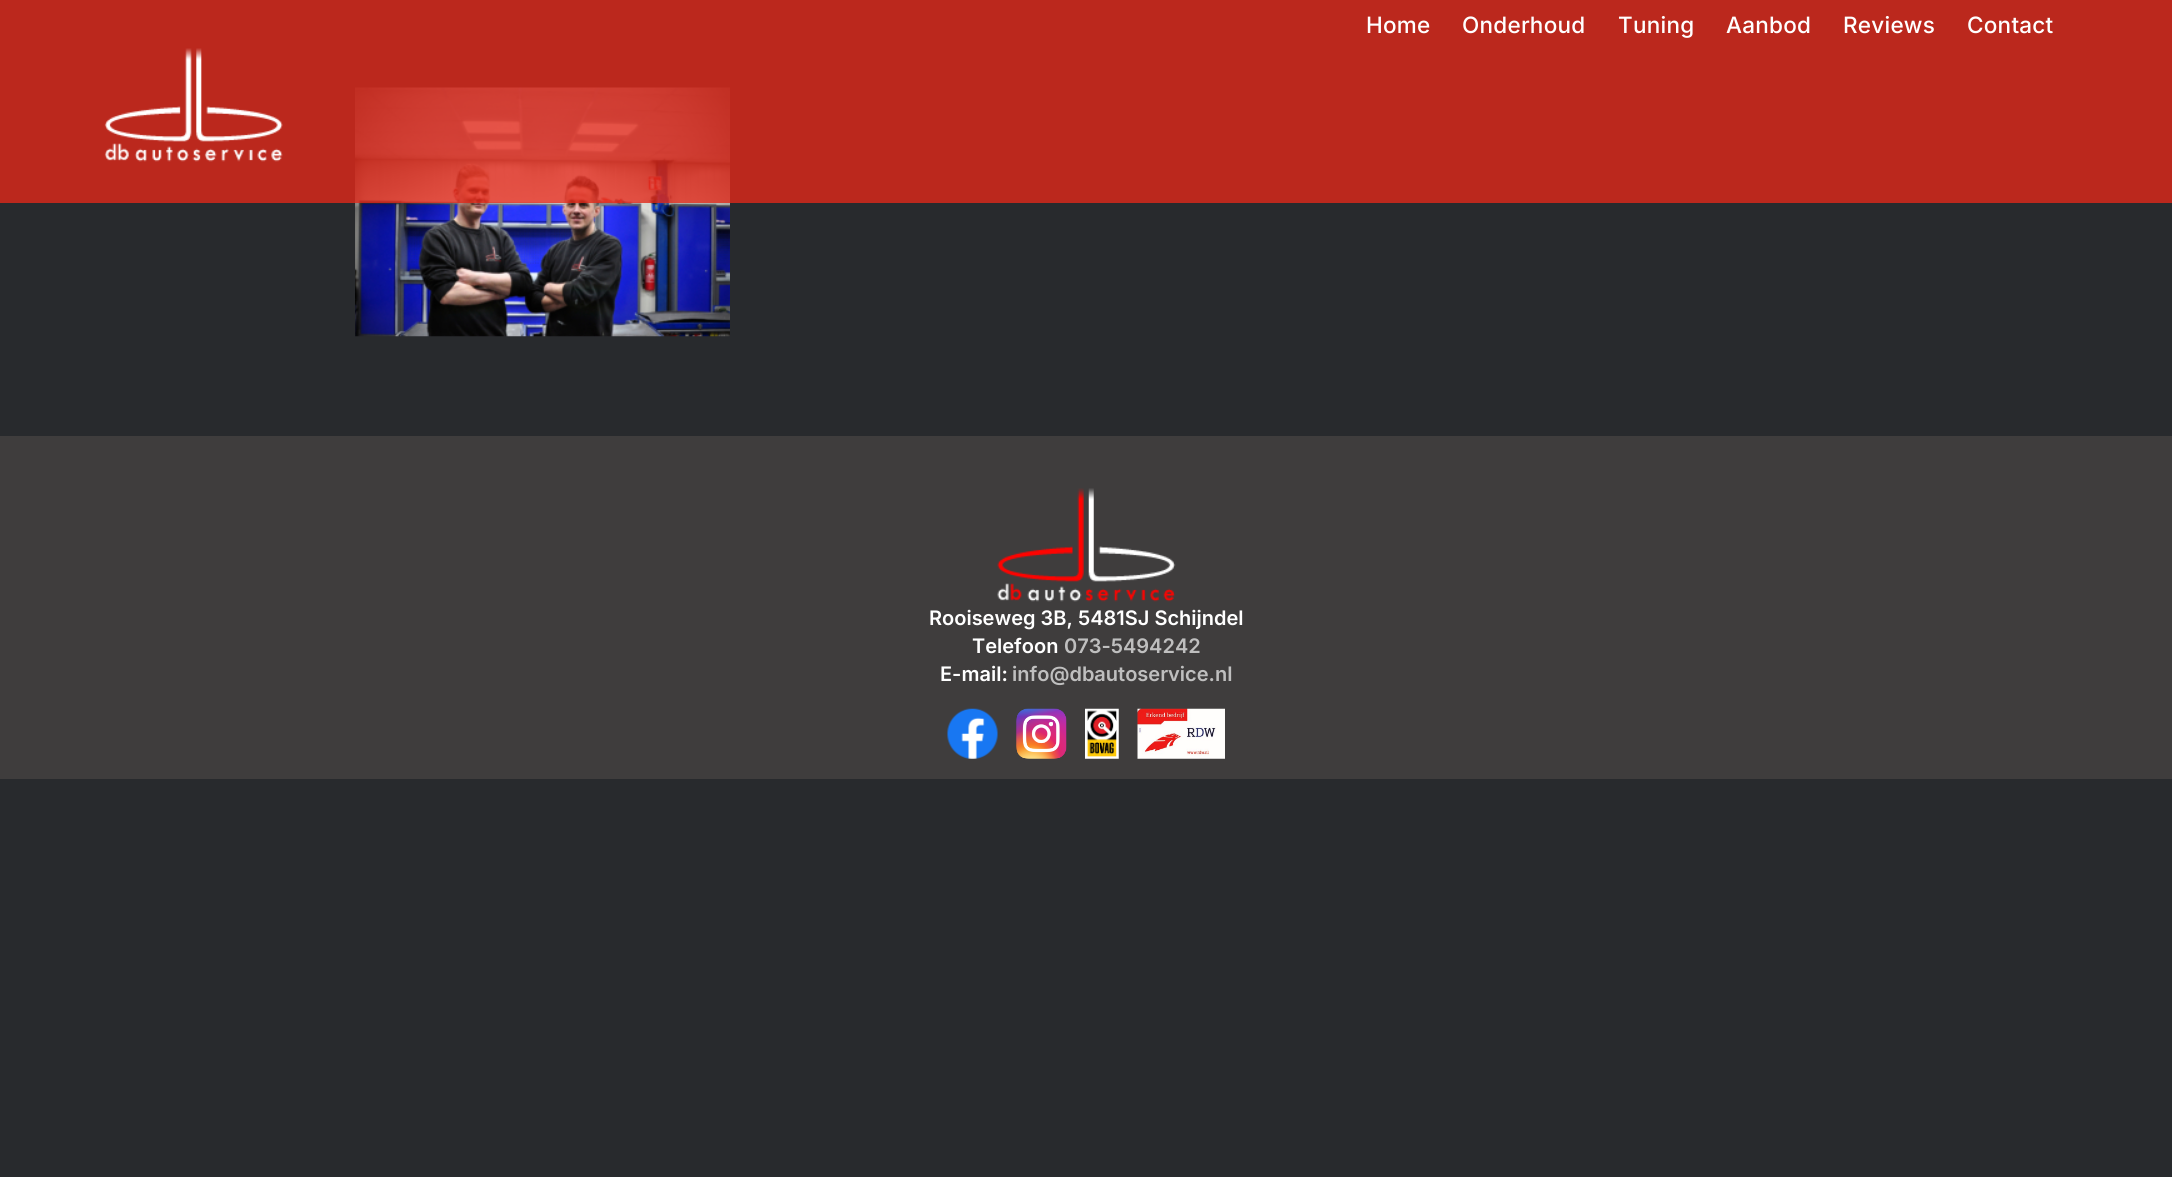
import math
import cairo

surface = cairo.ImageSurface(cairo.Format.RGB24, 2172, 1177)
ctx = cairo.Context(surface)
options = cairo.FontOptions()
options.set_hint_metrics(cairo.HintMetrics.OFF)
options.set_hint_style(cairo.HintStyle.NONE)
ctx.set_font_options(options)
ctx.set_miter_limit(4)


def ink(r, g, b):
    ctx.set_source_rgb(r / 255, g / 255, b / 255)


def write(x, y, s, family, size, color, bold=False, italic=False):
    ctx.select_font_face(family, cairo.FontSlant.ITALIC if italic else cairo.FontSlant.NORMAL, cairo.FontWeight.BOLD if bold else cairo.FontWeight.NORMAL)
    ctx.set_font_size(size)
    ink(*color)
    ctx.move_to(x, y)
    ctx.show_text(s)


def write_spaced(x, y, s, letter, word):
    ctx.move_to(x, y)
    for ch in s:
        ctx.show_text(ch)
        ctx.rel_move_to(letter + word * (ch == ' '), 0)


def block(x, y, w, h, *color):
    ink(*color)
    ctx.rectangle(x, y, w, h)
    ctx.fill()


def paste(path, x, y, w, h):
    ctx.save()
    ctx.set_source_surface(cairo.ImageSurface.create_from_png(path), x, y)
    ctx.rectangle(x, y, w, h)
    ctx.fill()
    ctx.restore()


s1 = dict(family="Inter SemiBold", size=20, color=(255, 255, 255))
s2 = dict(family="Inter SemiBold", size=20, color=(191, 191, 191))

ink(40, 42, 45)
ctx.paint()
paste("pic2.png", 355, 87, 375, 250)
ctx.set_source_rgba(0.875, 0.157, 0.102, 0.8)
ctx.rectangle(0, 0, 2172, 203)
ctx.fill()
ctx.select_font_face("Inter Medium")
ctx.set_font_size(22.5)
ink(255, 255, 255)
write_spaced(1366, 33, "Home", 0.25, 0)
write_spaced(1462, 33, "Onderhoud", 0.25, 0)
write_spaced(1618, 33, "Tuning", 0.25, 0)
write_spaced(1726, 33, "Aanbod", 0.25, 0)
write_spaced(1843, 33, "Reviews", 0.25, 0)
write_spaced(1967, 33, "Contact", 0.25, 0)
paste("pic1.png", 104, 48, 179, 114)
block(0, 436, 2172, 343, 63, 61, 61)
paste("pic3.png", 997, 488, 179, 114)
write(929, 625, "Rooiseweg 3B, 5481SJ Schijndel", **s1)
write(972, 653, "Telefoon", **s1)
write(1064, 653, "073-5494242", **s2)
write(940, 681, "E-mail:", **s1)
write(1012, 681, "info@dbautoservice.nl", **s2)
paste("pic4.png", 947, 708, 51, 51)
paste("pic5.png", 1016, 708, 51, 51)
paste("pic6.png", 1085, 708, 34, 51)
paste("pic7.png", 1137, 708, 88, 51)
surface.write_to_png("screenshot.png")
